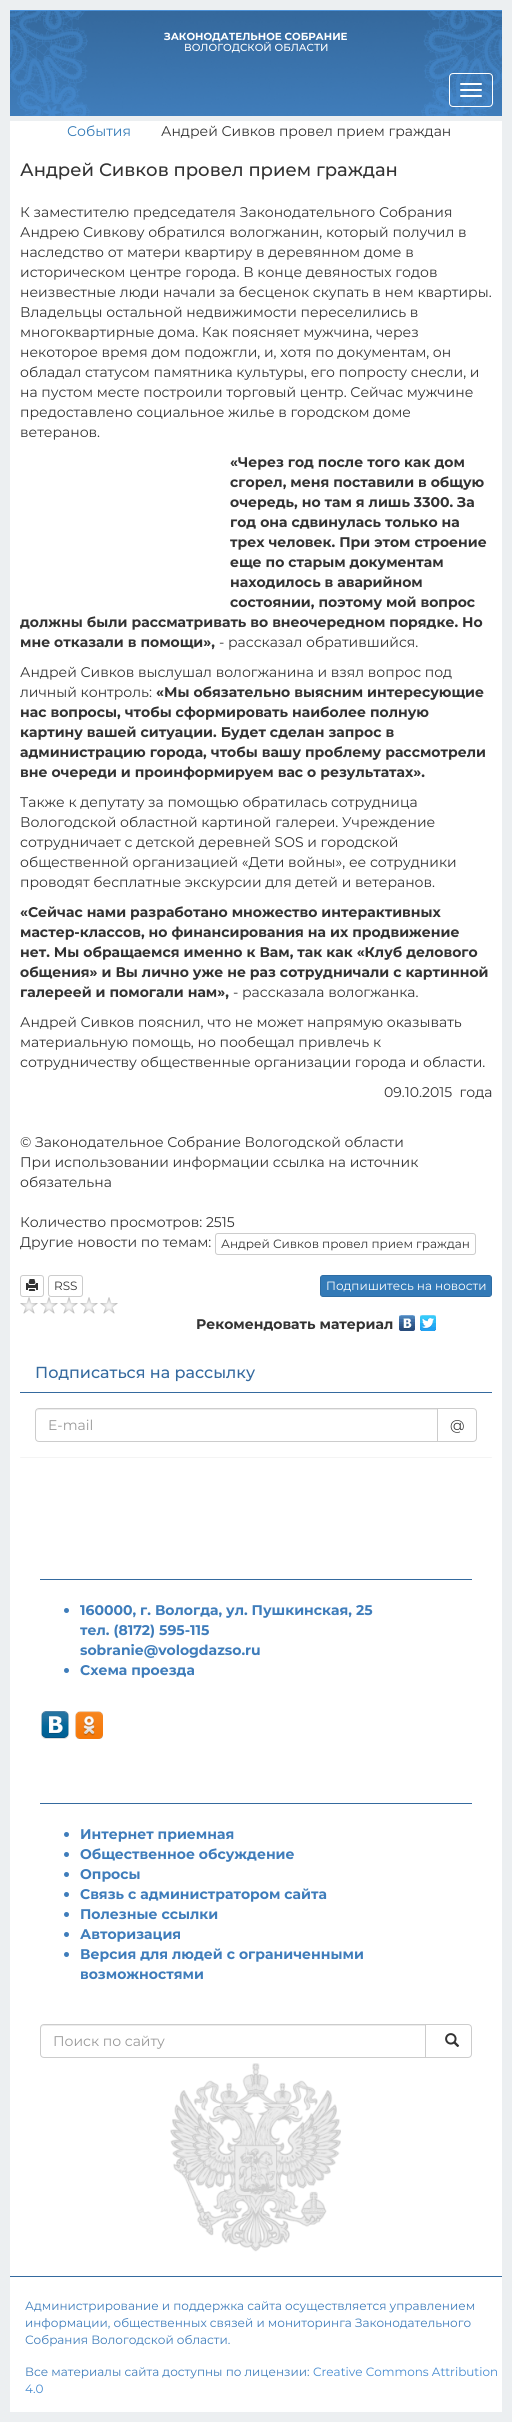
import math
import cairo

surface = cairo.ImageSurface(cairo.Format.RGB24, 512, 2429)
ctx = cairo.Context(surface)
options = cairo.FontOptions()
options.set_hint_metrics(cairo.HintMetrics.OFF)
options.set_hint_style(cairo.HintStyle.NONE)
ctx.set_font_options(options)
ctx.set_miter_limit(4)


def ink(r, g, b):
    ctx.set_source_rgb(r / 255, g / 255, b / 255)


def write(x, y, s, family, size, color, bold=False, italic=False):
    ctx.select_font_face(family, cairo.FontSlant.ITALIC if italic else cairo.FontSlant.NORMAL, cairo.FontWeight.BOLD if bold else cairo.FontWeight.NORMAL)
    ctx.set_font_size(size)
    ink(*color)
    ctx.move_to(x, y)
    ctx.show_text(s)


def block(x, y, w, h, *color):
    ink(*color)
    ctx.rectangle(x, y, w, h)
    ctx.fill()


def round_path(x, y, w, h, r):
    ctx.new_sub_path()
    for i, (u, v) in enumerate([(x + w - r, y + h - r), (x + r, y + h - r), (x + r, y + r), (x + w - r, y + r)]):
        ctx.arc(u, v, r, i * math.pi / 2, (i + 1) * math.pi / 2)
    ctx.close_path()


def blur_box(x, y, w, h, r, blur, alpha):
    ctx.push_group_with_content(cairo.Content.ALPHA)
    ctx.set_operator(cairo.Operator.SOURCE)
    for i in range(15, -16, -2):
        e = blur * i / 6
        if min(w, h) + 2 * e > 0:
            ctx.set_source_rgba(0, 0, 0, alpha * math.erfc((i - 1) / 8.5) / 2)
            round_path(x - e, y - e, w + 2 * e, h + 2 * e, max(0, min(r + e + blur * .6, min(w, h) / 2 + e)))
            ctx.fill()
    ctx.mask(ctx.pop_group())


def paste(path, x, y, w, h):
    ctx.save()
    ctx.set_source_surface(cairo.ImageSurface.create_from_png(path), x, y)
    ctx.rectangle(x, y, w, h)
    ctx.fill()
    ctx.restore()


s1 = dict(family="Montserrat", size=10.25, color=(255, 255, 255), bold=True)
s2 = dict(family="Montserrat Medium", size=10.25, color=(255, 255, 255))
s3 = dict(family="Montserrat", size=14, color=(51, 122, 183))
s4 = dict(family="Montserrat", size=14, color=(51, 51, 51))
s5 = dict(family="Montserrat Medium", size=18, color=(51, 51, 51))
s6 = dict(family="Montserrat", size=14, color=(51, 51, 51), bold=True)
s7 = dict(family="Montserrat", size=12, color=(51, 51, 51))
s8 = dict(family="Montserrat", size=12, color=(255, 255, 255))
s9 = dict(family="Montserrat Medium", size=16, color=(53, 106, 159))
s10 = dict(family="Montserrat", size=14, color=(153, 153, 153))
s11 = dict(family="Montserrat", size=14, color=(63, 125, 187), bold=True)
s12 = dict(family="Montserrat", size=12, color=(63, 125, 187))
s13 = dict(family="Montserrat", size=12, color=(71, 139, 208))

ink(255, 255, 255)
ctx.paint()
block(0, 0, 512, 2422, 236, 239, 241)
paste("pic1.png", 10, 10, 492, 106)
write(164, 40, "ЗАКОНОДАТЕЛЬНОЕ СОБРАНИЕ", **s1)
write(184, 51, "ВОЛОГОДСКОЙ ОБЛАСТИ", **s2)
round_path(449.5, 73.5, 43, 33, 3.5)
ctx.set_line_width(1)
ctx.stroke()
round_path(460, 83, 22, 2, 1)
ctx.fill()
round_path(460, 89, 22, 2, 1)
ctx.fill()
round_path(460, 95, 22, 2, 1)
ctx.fill()
block(10, 121, 492, 2291, 255, 255, 255)
write(67, 136, "События", **s3)
write(161, 136, "Андрей Сивков провел прием граждан", **s4)
write(20, 176, "Андрей Сивков провел прием граждан", **s5)
write(20, 217, "К заместителю председателя Законодательного Собрания", **s4)
write(20, 237, "Андрею Сивкову обратился вологжанин, который получил в", **s4)
write(20, 257, "наследство от матери квартиру в деревянном доме в", **s4)
write(20, 277, "историческом центре города. В конце девяностых годов", **s4)
write(20, 297, "неизвестные люди начали за бесценок скупать в нем квартиры.", **s4)
write(20, 317, "Владельцы остальной недвижимости переселились в", **s4)
write(20, 337, "многоквартирные дома. Как поясняет мужчина, через", **s4)
write(20, 357, "некоторое время дом подожгли, и, хотя по документам, он", **s4)
write(20, 377, "обладал статусом памятника культуры, его попросту снесли, и", **s4)
write(20, 397, "на пустом месте построили торговый центр. Сейчас мужчине", **s4)
write(20, 417, "предоставлено социальное жилье в городском доме", **s4)
write(20, 437, "ветеранов.", **s4)
write(230, 467, "«Через год после того как дом", **s6)
write(230, 487, "сгорел, меня поставили в общую", **s6)
write(230, 507, "очередь, но там я лишь 3300. За", **s6)
write(230, 527, "год она сдвинулась только на", **s6)
write(230, 547, "трех человек. При этом строение", **s6)
write(230, 567, "еще по старым документам", **s6)
write(230, 587, "находилось в аварийном", **s6)
write(230, 607, "состоянии, поэтому мой вопрос", **s6)
write(20, 627, "должны были рассматривать во внеочередном порядке. Но", **s6)
write(20, 647, "мне отказали в помощи»,", **s6)
write(219, 647, "- рассказал обратившийся.", **s4)
write(20, 677, "Андрей Сивков выслушал вологжанина и взял вопрос под", **s4)
write(20, 697, "личный контроль:", **s4)
write(156, 697, "«Мы обязательно выясним интересующие", **s6)
write(20, 717, "нас вопросы, чтобы сформировать наиболее полную", **s6)
write(20, 737, "картину вашей ситуации. Будет сделан запрос в", **s6)
write(20, 757, "администрацию города, чтобы вашу проблему рассмотрели", **s6)
write(20, 777, "вне очереди и проинформируем вас о результатах».", **s6)
write(20, 807, "Также к депутату за помощью обратилась сотрудница", **s4)
write(20, 827, "Вологодской областной картиной галереи. Учреждение", **s4)
write(20, 847, "сотрудничает с детской деревней SOS и городской", **s4)
write(20, 867, "общественной организацией «Дети войны», ее сотрудники", **s4)
write(20, 887, "проводят бесплатные экскурсии для детей и ветеранов.", **s4)
write(20, 917, "«Сейчас нами разработано множество интерактивных", **s6)
write(20, 937, "мастер-классов, но финансирования на их продвижение", **s6)
write(20, 957, "нет. Мы обращаемся именно к Вам, так как «Клуб делового", **s6)
write(20, 977, "общения» и Вы лично уже не раз сотрудничали с картинной", **s6)
write(20, 997, "галереей и помогали нам»,", **s6)
write(233, 997, "- рассказала вологжанка.", **s4)
write(20, 1027, "Андрей Сивков пояснил, что не может напрямую оказывать", **s4)
write(20, 1047, "материальную помощь, но пообещал привлечь к", **s4)
write(20, 1067, "сотрудничеству общественные организации города и области.", **s4)
write(384, 1097, "09.10.2015  года", **s4)
write(20, 1147, "© Законодательное Собрание Вологодской области", **s4)
write(20, 1167, "При использовании информации ссылка на источник", **s4)
write(20, 1187, "обязательна", **s4)
write(20, 1227, "Количество просмотров: 2515", **s4)
write(20, 1247, "Другие новости по темам:", **s4)
round_path(215.5, 1233.5, 260, 21, 2.5)
ink(204, 204, 204)
ctx.stroke()
write(221, 1248, "Андрей Сивков провел прием граждан", **s7)
round_path(20.5, 1275.5, 23, 21, 2.5)
ink(204, 204, 204)
ctx.stroke()
paste("pic2.png", 26, 1279, 12, 12)
round_path(48.5, 1275.5, 34, 21, 2.5)
ctx.stroke()
write(54, 1290, "RSS", **s7)
ink(51, 122, 183)
round_path(320.5, 1275.5, 171, 21, 2.5)
ctx.fill_preserve()
ink(46, 109, 164)
ctx.stroke()
write(326, 1290, "Подпишитесь на новости", **s8)
paste("pic3.png", 20, 1297, 18, 17)
paste("pic3.png", 40, 1297, 18, 17)
paste("pic3.png", 60, 1297, 18, 17)
paste("pic3.png", 80, 1297, 18, 17)
paste("pic3.png", 100, 1297, 18, 17)
write(196, 1329, "Рекомендовать материал", **s6)
paste("pic4.png", 399, 1315, 16, 16)
paste("pic5.png", 420, 1315, 16, 16)
ctx.save()
ctx.rectangle(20, 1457, 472, 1)
ctx.clip()
ink(0, 0, 0)
blur_box(20, 1355, 472, 103, 0, 0.5, 0.05)
ctx.restore()
block(20, 1392, 472, 1, 53, 106, 159)
write(35, 1378, "Подписаться на рассылку", **s9)
ink(236, 236, 236)
ctx.new_path()
ctx.move_to(39, 1410)
ctx.line_to(437, 1410)
ctx.line_to(437, 1409)
ctx.line_to(39, 1409)
ctx.curve_to(37, 1409, 36, 1411, 36, 1413)
ctx.curve_to(36, 1411, 37, 1410, 39, 1410)
ctx.close_path()
ctx.fill()
ctx.new_path()
ctx.move_to(39, 1408.5)
ctx.line_to(437.5, 1408.5)
ctx.line_to(437.5, 1441.5)
ctx.line_to(39, 1441.5)
ctx.curve_to(37, 1441.5, 35.5, 1440, 35.5, 1438)
ctx.line_to(35.5, 1412)
ctx.curve_to(35.5, 1410, 37, 1408.5, 39, 1408.5)
ctx.close_path()
ink(204, 204, 204)
ctx.stroke()
write(48, 1430, "E-mail", **s10)
ink(255, 255, 255)
ctx.new_path()
ctx.move_to(437.5, 1408.5)
ctx.line_to(473, 1408.5)
ctx.curve_to(475, 1408.5, 476.5, 1410, 476.5, 1412)
ctx.line_to(476.5, 1438)
ctx.curve_to(476.5, 1440, 475, 1441.5, 473, 1441.5)
ctx.line_to(437.5, 1441.5)
ctx.close_path()
ctx.fill_preserve()
ink(204, 204, 204)
ctx.stroke()
write(450, 1430, "@", **s4)
block(40, 1579, 432, 1, 53, 106, 159)
ink(63, 125, 187)
ctx.new_path()
ctx.arc(66.5, 1610.5, 2.5, 0, 2 * math.pi)
ctx.fill()
write(80, 1615, "160000, г. Вологда, ул. Пушкинская, 25", **s11)
write(80, 1635, "тел. (8172) 595-115", **s11)
write(80, 1655, "sobranie@vologdazso.ru", **s11)
ctx.new_path()
ctx.arc(66.5, 1670.5, 2.5, 0, 2 * math.pi)
ctx.fill()
write(80, 1675, "Схема проезда", **s11)
paste("pic6.png", 41, 1711, 28, 28)
paste("pic7.png", 75, 1711, 28, 28)
block(40, 1803, 432, 1, 53, 106, 159)
ink(63, 125, 187)
ctx.arc(66.5, 1834.5, 2.5, 0, 2 * math.pi)
ctx.fill()
write(80, 1839, "Интернет приемная", **s11)
ctx.new_path()
ctx.arc(66.5, 1854.5, 2.5, 0, 2 * math.pi)
ctx.fill()
write(80, 1859, "Общественное обсуждение", **s11)
ctx.new_path()
ctx.arc(66.5, 1874.5, 2.5, 0, 2 * math.pi)
ctx.fill()
write(80, 1879, "Опросы", **s11)
ctx.new_path()
ctx.arc(66.5, 1894.5, 2.5, 0, 2 * math.pi)
ctx.fill()
write(80, 1899, "Связь с администратором сайта", **s11)
ctx.new_path()
ctx.arc(66.5, 1914.5, 2.5, 0, 2 * math.pi)
ctx.fill()
write(80, 1919, "Полезные ссылки", **s11)
ctx.new_path()
ctx.arc(66.5, 1934.5, 2.5, 0, 2 * math.pi)
ctx.fill()
write(80, 1939, "Авторизация", **s11)
ctx.new_path()
ctx.arc(66.5, 1954.5, 2.5, 0, 2 * math.pi)
ctx.fill()
write(80, 1959, "Версия для людей с ограниченными", **s11)
write(80, 1979, "возможностями", **s11)
ink(236, 236, 236)
ctx.new_path()
ctx.move_to(44, 2026)
ctx.line_to(425, 2026)
ctx.line_to(425, 2025)
ctx.line_to(44, 2025)
ctx.curve_to(42, 2025, 41, 2026, 41, 2028)
ctx.line_to(41, 2029)
ctx.curve_to(41, 2027, 42, 2026, 44, 2026)
ctx.close_path()
ctx.fill()
ctx.new_path()
ctx.move_to(44, 2024.5)
ctx.line_to(425.5, 2024.5)
ctx.line_to(425.5, 2057.5)
ctx.line_to(44, 2057.5)
ctx.curve_to(42, 2057.5, 40.5, 2056, 40.5, 2054)
ctx.line_to(40.5, 2028)
ctx.curve_to(40.5, 2026, 42, 2024.5, 44, 2024.5)
ctx.close_path()
ink(204, 204, 204)
ctx.stroke()
write(53, 2046, "Поиск по сайту", **s10)
ink(255, 255, 255)
ctx.new_path()
ctx.move_to(425.5, 2024.5)
ctx.line_to(468, 2024.5)
ctx.curve_to(470, 2024.5, 471.5, 2026, 471.5, 2028)
ctx.line_to(471.5, 2054)
ctx.curve_to(471.5, 2056, 470, 2057.5, 468, 2057.5)
ctx.line_to(425.5, 2057.5)
ctx.close_path()
ctx.fill_preserve()
ink(204, 204, 204)
ctx.stroke()
paste("pic8.png", 445, 2033, 15, 14)
paste("pic9.png", 170, 2063, 171, 189)
block(10, 2276, 492, 1, 53, 106, 159)
write(25, 2310, "Администрирование и поддержка сайта осуществляется управлением", **s12)
write(25, 2327, "информации, общественных связей и мониторинга Законодательного", **s12)
write(25, 2344, "Собрания Вологодской области.", **s12)
write(25, 2376, "Все материалы сайта доступны по лицензии:", **s12)
write(313, 2376, "Creative Commons Attribution", **s13)
write(25, 2393, "4.0", **s13)
surface.write_to_png("screenshot.png")
